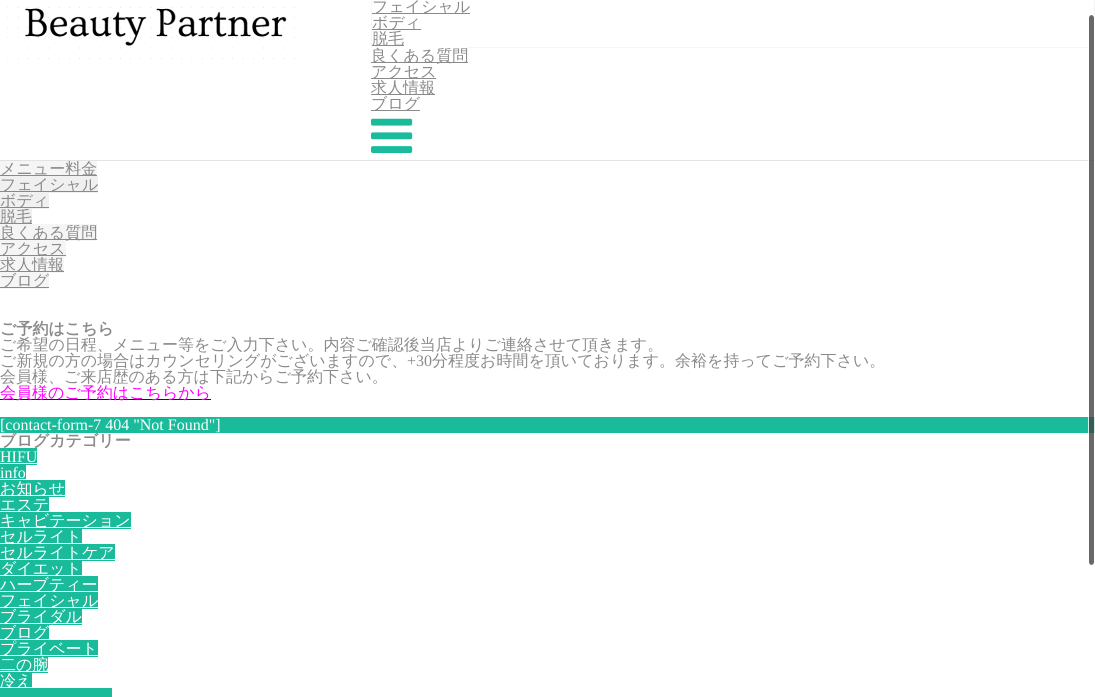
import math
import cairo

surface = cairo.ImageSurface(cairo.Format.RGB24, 1095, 697)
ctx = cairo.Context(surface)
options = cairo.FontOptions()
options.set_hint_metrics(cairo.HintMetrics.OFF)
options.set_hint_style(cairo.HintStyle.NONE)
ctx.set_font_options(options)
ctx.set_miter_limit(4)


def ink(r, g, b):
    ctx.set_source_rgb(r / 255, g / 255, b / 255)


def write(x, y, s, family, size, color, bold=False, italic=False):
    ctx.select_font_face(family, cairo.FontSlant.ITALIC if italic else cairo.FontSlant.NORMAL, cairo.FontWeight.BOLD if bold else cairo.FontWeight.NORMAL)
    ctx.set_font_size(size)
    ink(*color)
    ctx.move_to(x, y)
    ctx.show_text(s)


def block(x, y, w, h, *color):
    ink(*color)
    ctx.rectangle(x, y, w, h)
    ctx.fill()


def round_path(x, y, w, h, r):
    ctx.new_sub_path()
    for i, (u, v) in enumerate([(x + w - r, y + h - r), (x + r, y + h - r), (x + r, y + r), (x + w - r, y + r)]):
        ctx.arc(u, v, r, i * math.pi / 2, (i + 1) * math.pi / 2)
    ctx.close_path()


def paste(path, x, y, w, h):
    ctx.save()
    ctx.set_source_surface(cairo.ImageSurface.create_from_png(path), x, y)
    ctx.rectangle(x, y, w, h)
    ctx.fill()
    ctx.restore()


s1 = dict(family="WenQuanYi Zen Hei Medium", size=16, color=(138, 138, 138))
s2 = dict(family="WenQuanYi Zen Hei", size=16, color=(138, 138, 138), bold=True)
s3 = dict(family="Liberation Serif", size=16, color=(138, 138, 138))
s4 = dict(family="WenQuanYi Zen Hei Medium", size=16, color=(255, 0, 255))
s5 = dict(family="Liberation Serif", size=16, color=(255, 255, 255))
s6 = dict(family="WenQuanYi Zen Hei Medium", size=16, color=(255, 255, 255))

ink(255, 255, 255)
ctx.paint()
block(0, 160, 1095, 1, 227, 227, 227)
paste("pic1.png", 7, 7, 288, 52)
ctx.rectangle(371.5, -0.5, 723, 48)
ink(245, 245, 245)
ctx.set_line_width(1)
ctx.stroke()
block(372, 13, 98, 1, 138, 138, 138)
write(372, 12, "フェイシャル", **s1)
block(372, 29, 49, 1, 138, 138, 138)
write(372, 28, "ボディ", **s1)
block(412, 14, 2, 1, 255, 255, 255)
block(372, 45, 32, 1, 138, 138, 138)
write(372, 44, "脱毛", **s1)
block(371, 47, 97, 1, 255, 255, 255)
block(371, 62, 97, 1, 138, 138, 138)
write(371, 61, "良くある質問", **s1)
block(371, 78, 65, 1, 138, 138, 138)
write(371, 77, "アクセス", **s1)
block(396, 63, 20, 1, 255, 255, 255)
block(371, 94, 64, 1, 138, 138, 138)
write(371, 93, "求人情報", **s1)
block(387, 95, 19, 1, 255, 255, 255)
block(371, 110, 49, 1, 138, 138, 138)
write(371, 109, "ブログ", **s1)
paste("pic2.png", 371, 118, 42, 35)
block(0, 161, 97, 14, 245, 245, 245)
block(0, 175, 97, 1, 138, 138, 138)
write(0, 174, "メニュー料金", **s1)
block(0, 176, 98, 17, 240, 240, 240)
block(0, 191, 98, 1, 138, 138, 138)
write(0, 190, "フェイシャル", **s1)
block(0, 192, 49, 17, 240, 240, 240)
block(0, 207, 49, 1, 138, 138, 138)
write(0, 206, "ボディ", **s1)
block(0, 209, 32, 14, 240, 240, 240)
block(0, 223, 32, 1, 138, 138, 138)
write(0, 222, "脱毛", **s1)
block(0, 224, 97, 17, 245, 245, 245)
block(0, 239, 97, 1, 138, 138, 138)
write(0, 238, "良くある質問", **s1)
block(0, 240, 66, 17, 245, 245, 245)
block(0, 255, 66, 1, 138, 138, 138)
write(0, 254, "アクセス", **s1)
block(0, 257, 64, 16, 245, 245, 245)
block(0, 271, 64, 1, 138, 138, 138)
write(0, 270, "求人情報", **s1)
block(0, 272, 49, 17, 245, 245, 245)
block(0, 287, 49, 1, 138, 138, 138)
write(0, 286, "ブログ", **s1)
write(0, 334, "ご予約はこちら", **s2)
write(0, 350, "ご希望の日程、メニュー等をご入力下さい。内容ご確認後当店よりご連絡させて頂きます。", **s1)
write(0, 366, "ご新規の方の場合はカウンセリングがございますので、", **s1)
write(407, 366, "+30", **s3)
write(432, 366, "分程度お時間を頂いております。余裕を持ってご予約下さい。", **s1)
write(0, 382, "会員様、ご来店歴のある方は下記からご予約下さい。", **s1)
block(0, 399, 211, 1, 0, 0, 238)
write(0, 398, "会員様のご予約はこちらから", **s4)
block(0, 417, 1095, 16, 25, 187, 155)
write(0, 430, "[contact-form-7 404 \"Not Found\"]", **s5)
write(0, 446, "ブログカテゴリー", **s2)
block(0, 448, 37, 17, 25, 187, 155)
write(0, 462, "HIFU", **s5)
block(0, 463, 37, 1, 255, 255, 255)
block(0, 465, 26, 14, 25, 187, 155)
write(0, 478, "info", **s5)
block(0, 480, 65, 17, 25, 187, 155)
block(0, 495, 65, 1, 255, 255, 255)
write(0, 494, "お知らせ", **s6)
block(0, 496, 49, 15, 25, 187, 155)
write(0, 510, "エステ", **s6)
block(0, 512, 131, 17, 25, 187, 155)
block(0, 527, 131, 1, 255, 255, 255)
write(0, 526, "キャビテーション", **s6)
block(0, 528, 82, 15, 25, 187, 155)
write(0, 542, "セルライト", **s6)
block(0, 544, 115, 17, 25, 187, 155)
block(0, 559, 115, 1, 255, 255, 255)
write(0, 558, "セルライトケア", **s6)
block(0, 560, 82, 15, 25, 187, 155)
write(0, 574, "ダイエット", **s6)
block(0, 576, 98, 15, 25, 187, 155)
write(0, 590, "ハーブティー", **s6)
block(0, 592, 98, 17, 25, 187, 155)
block(0, 607, 98, 1, 255, 255, 255)
write(0, 606, "フェイシャル", **s6)
block(0, 608, 82, 17, 25, 187, 155)
block(0, 623, 82, 1, 255, 255, 255)
write(0, 622, "ブライダル", **s6)
block(0, 624, 49, 15, 25, 187, 155)
write(0, 638, "ブログ", **s6)
block(0, 640, 98, 17, 25, 187, 155)
block(0, 655, 98, 1, 255, 255, 255)
write(0, 654, "プライベート", **s6)
block(0, 656, 48, 17, 25, 187, 155)
block(0, 671, 48, 1, 255, 255, 255)
write(0, 670, "二の腕", **s6)
block(0, 673, 32, 14, 25, 187, 155)
write(0, 686, "冷え", **s6)
block(0, 688, 112, 9, 25, 187, 155)
ctx.set_source_rgba(0.259, 0.259, 0.259, 0.8)
round_path(1089, 15, 5, 550, 2.5)
ctx.fill()
round_path(1088.5, 14.5, 6, 551, 3)
ctx.set_source_rgba(1, 1, 1, 0.8)
ctx.stroke()
surface.write_to_png("screenshot.png")
